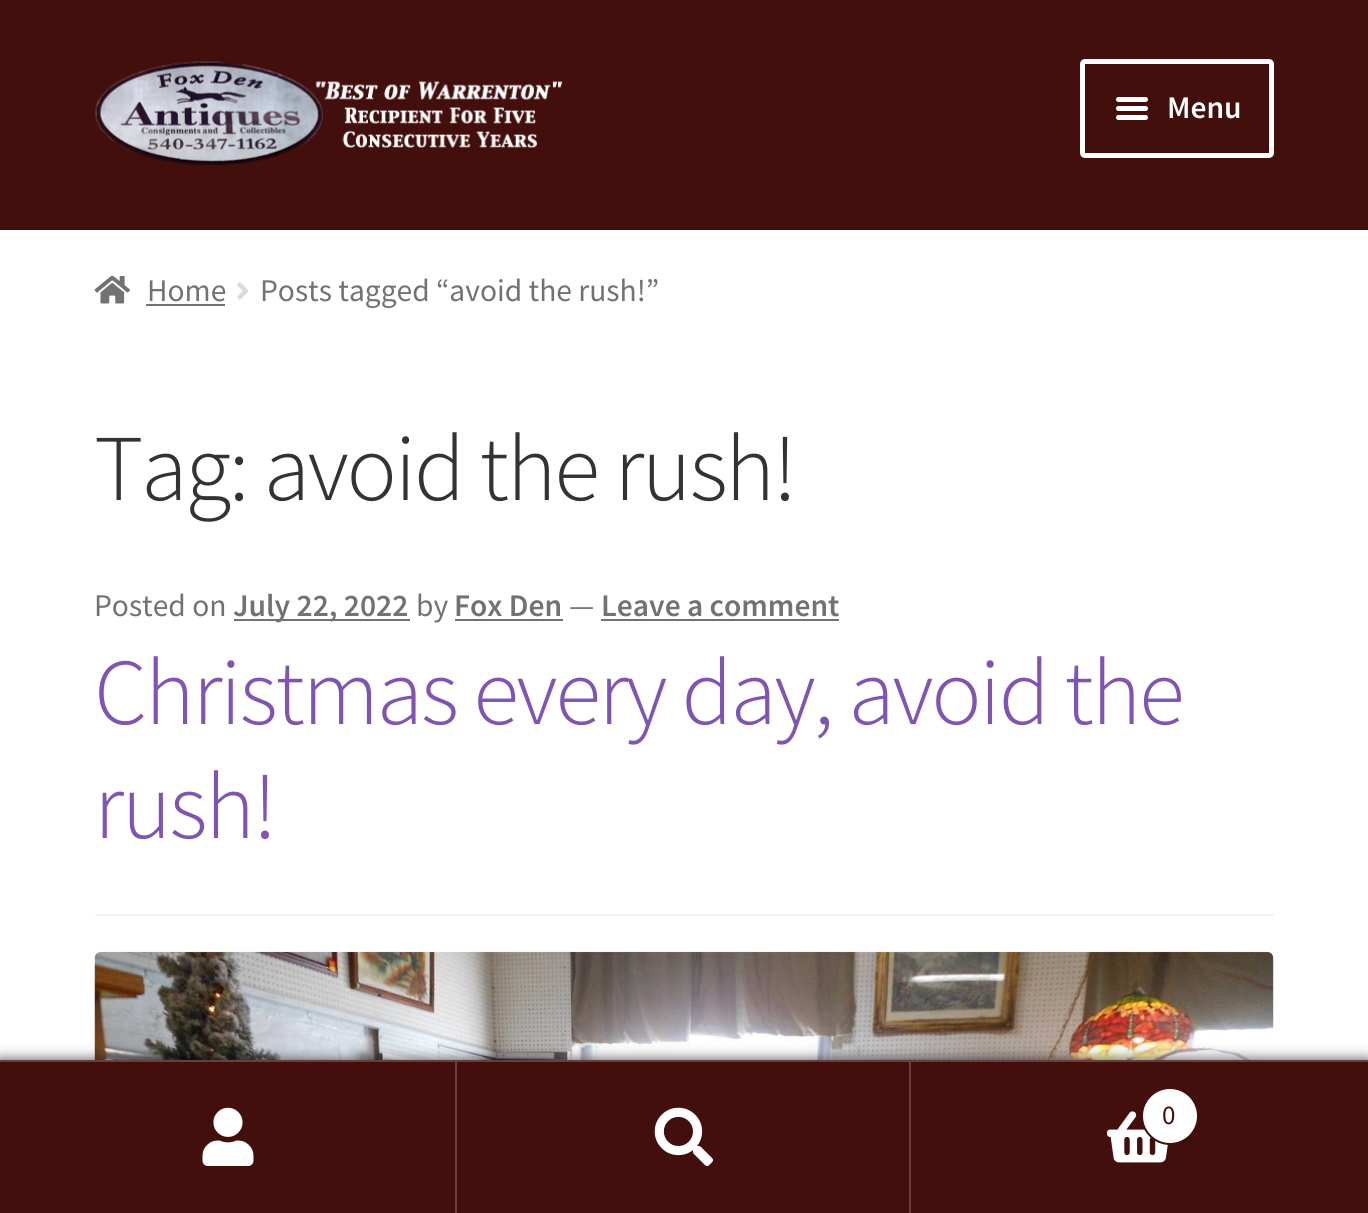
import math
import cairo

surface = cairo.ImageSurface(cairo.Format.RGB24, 1368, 1213)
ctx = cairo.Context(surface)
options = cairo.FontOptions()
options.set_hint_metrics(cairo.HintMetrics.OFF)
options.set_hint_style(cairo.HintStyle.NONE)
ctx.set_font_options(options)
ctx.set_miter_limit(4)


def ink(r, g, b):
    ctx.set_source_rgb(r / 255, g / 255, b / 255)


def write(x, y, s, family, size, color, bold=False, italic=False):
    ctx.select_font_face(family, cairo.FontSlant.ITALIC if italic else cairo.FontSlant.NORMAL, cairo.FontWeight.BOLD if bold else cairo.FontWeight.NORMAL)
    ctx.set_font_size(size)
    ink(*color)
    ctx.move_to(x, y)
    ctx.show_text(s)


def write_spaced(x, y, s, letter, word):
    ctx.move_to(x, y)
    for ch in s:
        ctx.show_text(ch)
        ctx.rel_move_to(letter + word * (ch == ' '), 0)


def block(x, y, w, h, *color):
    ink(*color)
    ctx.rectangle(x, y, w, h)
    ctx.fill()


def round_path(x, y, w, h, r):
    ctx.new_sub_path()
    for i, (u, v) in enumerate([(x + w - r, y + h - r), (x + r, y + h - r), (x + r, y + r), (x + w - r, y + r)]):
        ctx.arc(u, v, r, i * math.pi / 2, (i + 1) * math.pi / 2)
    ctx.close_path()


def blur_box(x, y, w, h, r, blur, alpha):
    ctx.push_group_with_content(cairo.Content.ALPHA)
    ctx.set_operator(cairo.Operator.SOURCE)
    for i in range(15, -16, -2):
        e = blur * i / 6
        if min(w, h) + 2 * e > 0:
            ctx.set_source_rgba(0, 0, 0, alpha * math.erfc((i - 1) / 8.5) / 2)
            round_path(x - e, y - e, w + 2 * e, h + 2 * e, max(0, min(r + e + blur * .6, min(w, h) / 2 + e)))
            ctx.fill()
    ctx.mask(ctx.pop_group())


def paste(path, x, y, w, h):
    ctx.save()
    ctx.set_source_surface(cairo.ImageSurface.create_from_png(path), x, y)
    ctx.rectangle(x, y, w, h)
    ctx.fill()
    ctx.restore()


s1 = dict(family="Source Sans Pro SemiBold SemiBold", size=31.5, color=(255, 255, 255))
s2 = dict(family="Source Sans Pro", size=31.5, color=(114, 114, 114))
s3 = dict(family="Source Sans Pro SemiBold SemiBold", size=31.5, color=(114, 114, 114))
s4 = dict(family="Source Sans Pro", size=27, color=(66, 15, 13))

ink(255, 255, 255)
ctx.paint()
block(0, 0, 1368, 230, 66, 15, 13)
paste("pic1.png", 95, 61, 468, 105)
round_path(1082.5, 61.5, 189, 94, 2.5)
ink(255, 255, 255)
ctx.set_line_width(5)
ctx.stroke()
round_path(1116, 97, 32, 5, 2.5)
ctx.fill()
round_path(1116, 106, 32, 5, 2.5)
ctx.fill()
write(1167, 118, "Menu", **s1)
round_path(1116, 115, 32, 5, 2.5)
ctx.fill()
paste("pic2.png", 94, 275, 36, 29)
write(147, 301, "Home", **s2)
block(146, 304, 79, 2, 114, 114, 114)
paste("pic3.png", 237, 282, 12, 18)
write(260, 301, "Posts tagged “avoid the rush!”", **s2)
ctx.select_font_face("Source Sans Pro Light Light")
ctx.set_font_size(94.25)
ink(51, 51, 51)
write_spaced(94, 500, "Tag: avoid the rush!", -2.25, 0)
block(95, 914, 1179, 2, 242, 242, 242)
write(94, 616, "Posted on", **s2)
block(234, 619, 176, 2, 114, 114, 114)
write(233, 616, "July 22, 2022", **s3)
write(416, 616, "by", **s2)
write(454, 616, "Fox Den", **s3)
block(455, 619, 108, 2, 114, 114, 114)
write(569, 616, "—", **s2)
write(601, 616, "Leave a comment", **s3)
block(601, 619, 238, 2, 114, 114, 114)
ctx.select_font_face("Source Sans Pro Light Light")
ctx.set_font_size(94.25)
ink(127, 84, 179)
write_spaced(94, 724, "Christmas every day, avoid the", -2.25, 0)
write_spaced(94, 838, "rush!", -2.25, 0)
paste("pic4.png", 94, 951, 1180, 109)
ink(0, 0, 0)
blur_box(0, 1060, 1368, 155, 0, 7, 0.7)
block(0, 1060, 1368, 2, 104, 63, 61)
block(0, 1062, 455, 151, 66, 15, 13)
block(455, 1062, 2, 151, 104, 63, 61)
paste("pic5.png", 202, 1107, 52, 59)
block(457, 1062, 452, 151, 66, 15, 13)
block(909, 1062, 2, 151, 104, 63, 61)
paste("pic6.png", 654, 1107, 59, 59)
block(911, 1062, 457, 151, 66, 15, 13)
paste("pic7.png", 1107, 1111, 61, 52)
ink(255, 255, 255)
ctx.arc(1170, 1116, 28, 0, 2 * math.pi)
ctx.fill_preserve()
ink(66, 15, 13)
ctx.set_line_width(2)
ctx.stroke()
write(1162, 1124, "0", **s4)
surface.write_to_png("screenshot.png")
